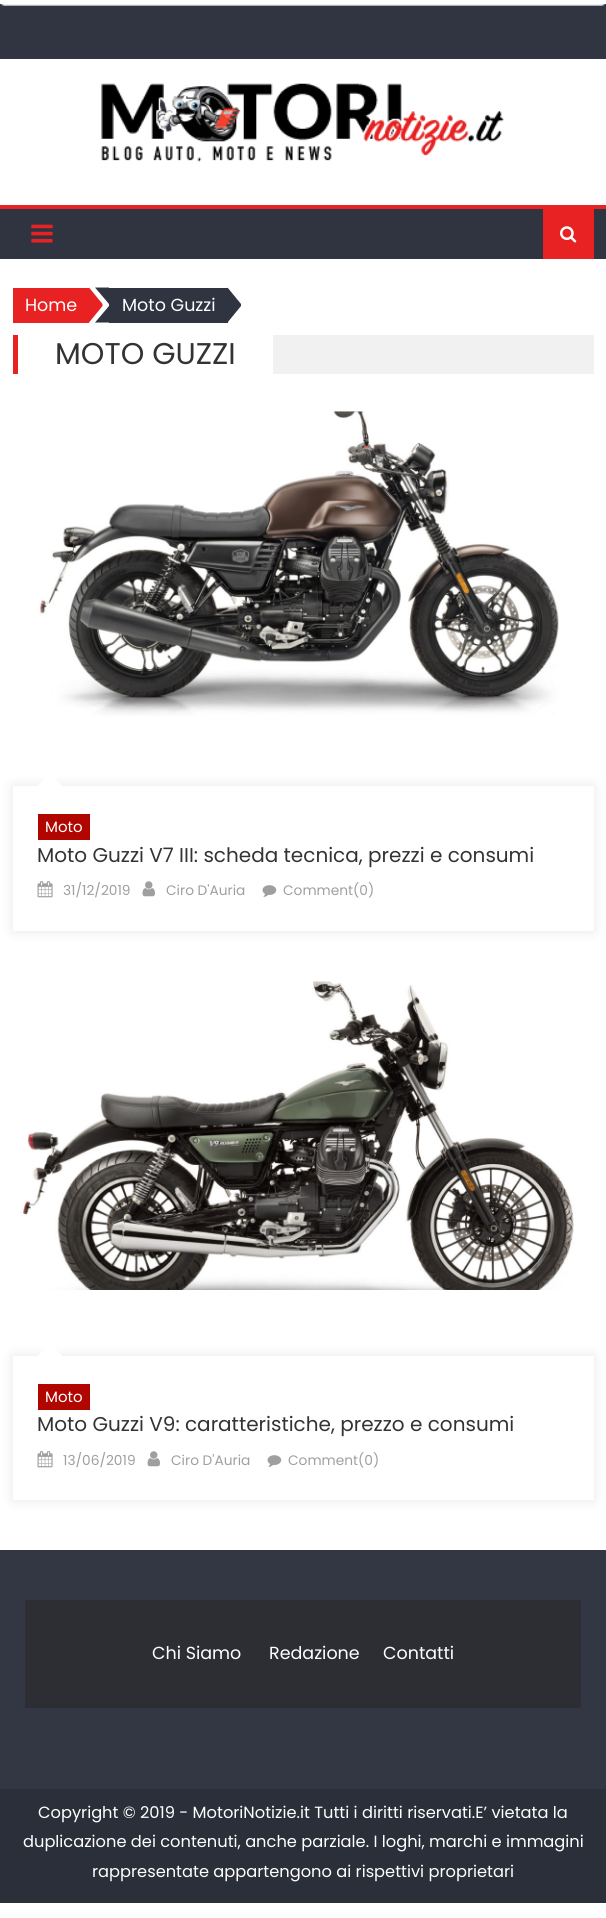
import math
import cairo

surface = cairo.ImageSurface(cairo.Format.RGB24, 606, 1918)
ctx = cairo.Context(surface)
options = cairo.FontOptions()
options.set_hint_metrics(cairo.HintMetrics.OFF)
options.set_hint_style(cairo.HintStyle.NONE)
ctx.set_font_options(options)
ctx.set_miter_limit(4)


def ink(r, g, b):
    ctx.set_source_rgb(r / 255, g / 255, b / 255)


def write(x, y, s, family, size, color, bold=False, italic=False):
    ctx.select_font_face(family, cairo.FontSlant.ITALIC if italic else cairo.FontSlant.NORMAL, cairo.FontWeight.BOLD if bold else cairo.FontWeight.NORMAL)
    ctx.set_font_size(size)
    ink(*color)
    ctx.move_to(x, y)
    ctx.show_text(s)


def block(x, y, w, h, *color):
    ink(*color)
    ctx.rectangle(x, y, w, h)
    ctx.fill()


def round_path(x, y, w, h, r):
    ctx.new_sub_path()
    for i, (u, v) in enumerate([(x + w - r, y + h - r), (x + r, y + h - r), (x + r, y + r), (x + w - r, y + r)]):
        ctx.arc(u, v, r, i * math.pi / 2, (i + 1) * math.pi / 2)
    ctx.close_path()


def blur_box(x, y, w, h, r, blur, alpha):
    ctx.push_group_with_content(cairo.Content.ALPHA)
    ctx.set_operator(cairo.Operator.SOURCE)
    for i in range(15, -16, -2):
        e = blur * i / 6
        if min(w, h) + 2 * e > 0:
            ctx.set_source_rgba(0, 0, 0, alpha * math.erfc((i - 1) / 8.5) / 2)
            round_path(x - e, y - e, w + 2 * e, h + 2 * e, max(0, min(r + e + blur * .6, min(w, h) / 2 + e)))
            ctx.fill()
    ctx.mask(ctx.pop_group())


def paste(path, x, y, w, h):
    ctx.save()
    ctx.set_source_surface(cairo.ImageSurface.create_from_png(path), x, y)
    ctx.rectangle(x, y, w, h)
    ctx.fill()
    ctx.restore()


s1 = dict(family="Poppins", size=17.5, color=(255, 255, 255))
s2 = dict(family="Poppins", size=30, color=(51, 51, 51))
s3 = dict(family="Poppins", size=15, color=(255, 255, 255))
s4 = dict(family="Poppins", size=20, color=(51, 51, 51))
s5 = dict(family="Poppins", size=13.75, color=(159, 159, 159))
s6 = dict(family="Poppins", size=16.25, color=(255, 255, 255))

ink(255, 255, 255)
ctx.paint()
block(0, 4, 606, 55, 49, 53, 65)
ink(239, 239, 239)
round_path(0.5, -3.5, 605, 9, 4.5)
ctx.fill_preserve()
ink(178, 178, 178)
ctx.set_line_width(1)
ctx.stroke()
block(0, 0, 606, 4, 255, 255, 255)
paste("pic1.png", 101, 83, 403, 79)
block(0, 209, 606, 50, 48, 52, 64)
block(0, 205, 606, 4, 232, 34, 34)
paste("pic2.png", 31, 224, 22, 19)
block(543, 209, 51, 50, 232, 34, 34)
paste("pic3.png", 560, 226, 17, 17)
block(13, 288, 76, 35, 232, 34, 34)
write(25, 311, "Home", **s1)
ink(232, 34, 34)
ctx.new_path()
ctx.move_to(89, 322.5)
ctx.line_to(89, 287.5)
ctx.line_to(102.5, 304)
ctx.line_to(102.5, 306)
ctx.close_path()
ctx.fill()
ink(48, 52, 64)
ctx.new_path()
ctx.move_to(95, 287.5)
ctx.line_to(109, 287.5)
ctx.line_to(109, 304)
ctx.close_path()
ctx.move_to(109, 322.5)
ctx.line_to(95, 322.5)
ctx.line_to(109, 306)
ctx.close_path()
ctx.fill()
block(109, 288, 119, 35, 48, 52, 64)
write(122, 311, "Moto Guzzi", **s1)
ink(48, 52, 64)
ctx.new_path()
ctx.move_to(227.5, 322.5)
ctx.line_to(227.5, 287.5)
ctx.line_to(241, 304)
ctx.line_to(241, 306)
ctx.close_path()
ctx.fill()
block(273, 335, 321, 39, 241, 241, 241)
block(13, 335, 5, 39, 232, 34, 34)
write(55, 364, "MOTO GUZZI", **s2)
paste("pic4.png", 39, 411, 520, 305)
ctx.save()
ctx.set_fill_rule(cairo.FillRule.EVEN_ODD)
ctx.new_path()
ctx.move_to(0, 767)
ctx.line_to(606, 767)
ctx.line_to(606, 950)
ctx.line_to(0, 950)
ctx.close_path()
ctx.move_to(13, 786)
ctx.line_to(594, 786)
ctx.line_to(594, 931)
ctx.line_to(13, 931)
ctx.close_path()
ctx.clip()
ink(0, 0, 0)
blur_box(13, 786, 581, 145, 0, 6, 0.1)
ctx.restore()
ink(255, 255, 255)
ctx.new_path()
ctx.move_to(62.5, 786)
ctx.line_to(37.5, 786)
ctx.line_to(50, 774)
ctx.close_path()
ctx.fill()
block(38, 814, 52, 26, 177, 5, 0)
write(45, 832, "Moto", **s3)
write(37, 862, "Moto Guzzi V7 III: scheda tecnica, prezzi e consumi", **s4)
paste("pic5.png", 37, 881, 16, 17)
write(63, 895, "31/12/2019", **s5)
paste("pic6.png", 142, 881, 13, 16)
write(166, 895, "Ciro D'Auria", **s5)
paste("pic7.png", 262, 885, 15, 12)
write(283, 895, "Comment(0)", **s5)
paste("pic8.png", 20, 981, 554, 309)
ctx.save()
ctx.set_fill_rule(cairo.FillRule.EVEN_ODD)
ctx.new_path()
ctx.move_to(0, 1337)
ctx.line_to(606, 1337)
ctx.line_to(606, 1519)
ctx.line_to(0, 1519)
ctx.close_path()
ctx.move_to(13, 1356)
ctx.line_to(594, 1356)
ctx.line_to(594, 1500)
ctx.line_to(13, 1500)
ctx.close_path()
ctx.clip()
ink(0, 0, 0)
blur_box(13, 1356, 581, 144, 0, 6, 0.1)
ctx.restore()
ink(255, 255, 255)
ctx.new_path()
ctx.move_to(62.5, 1356)
ctx.line_to(37.5, 1356)
ctx.line_to(50, 1344)
ctx.close_path()
ctx.fill()
block(38, 1384, 52, 26, 177, 5, 0)
write(45, 1402, "Moto", **s3)
write(37, 1431, "Moto Guzzi V9: caratteristiche, prezzo e consumi", **s4)
paste("pic5.png", 37, 1451, 16, 17)
write(63, 1465, "13/06/2019", **s5)
paste("pic6.png", 147, 1451, 13, 16)
write(171, 1465, "Ciro D'Auria", **s5)
paste("pic7.png", 267, 1455, 15, 12)
write(288, 1465, "Comment(0)", **s5)
block(0, 1550, 606, 239, 51, 55, 67)
block(25, 1600, 556, 108, 44, 46, 52)
write(152, 1659, "Chi Siamo", **s1)
write(269, 1659, "Redazione", **s1)
write(383, 1659, "Contatti", **s1)
block(0, 1789, 606, 114, 43, 47, 58)
write(38, 1818, "Copyright © 2019 - MotoriNotizie.it Tutti i diritti riservati.E’ vietata la", **s6)
write(23, 1847, "duplicazione dei contenuti, anche parziale. I loghi, marchi e immagini", **s6)
write(92, 1877, "rappresentate appartengono ai rispettivi proprietari", **s6)
surface.write_to_png("screenshot.png")
